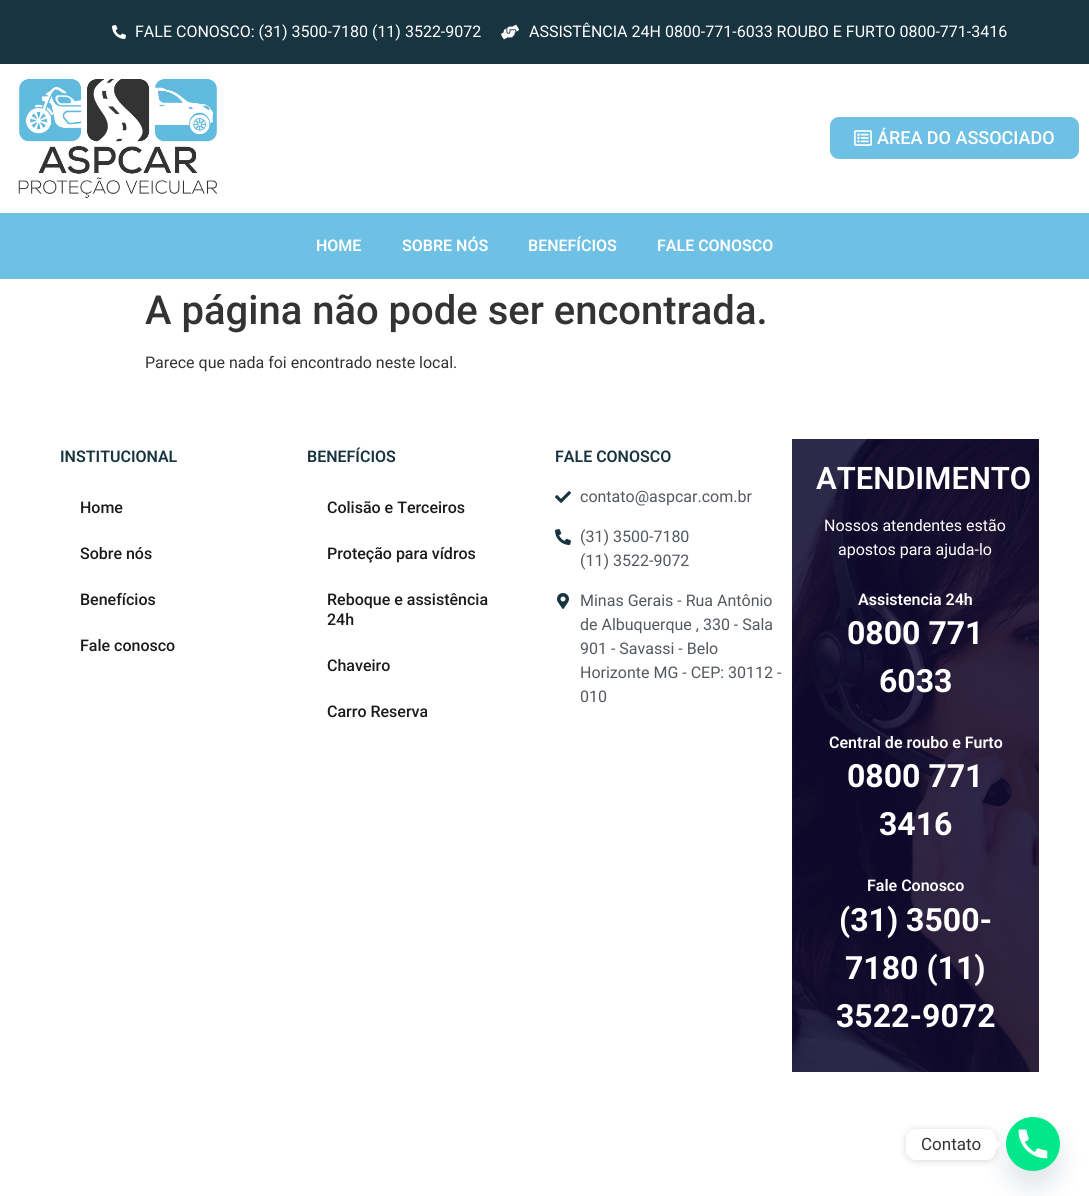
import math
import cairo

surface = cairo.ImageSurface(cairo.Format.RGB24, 1089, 1196)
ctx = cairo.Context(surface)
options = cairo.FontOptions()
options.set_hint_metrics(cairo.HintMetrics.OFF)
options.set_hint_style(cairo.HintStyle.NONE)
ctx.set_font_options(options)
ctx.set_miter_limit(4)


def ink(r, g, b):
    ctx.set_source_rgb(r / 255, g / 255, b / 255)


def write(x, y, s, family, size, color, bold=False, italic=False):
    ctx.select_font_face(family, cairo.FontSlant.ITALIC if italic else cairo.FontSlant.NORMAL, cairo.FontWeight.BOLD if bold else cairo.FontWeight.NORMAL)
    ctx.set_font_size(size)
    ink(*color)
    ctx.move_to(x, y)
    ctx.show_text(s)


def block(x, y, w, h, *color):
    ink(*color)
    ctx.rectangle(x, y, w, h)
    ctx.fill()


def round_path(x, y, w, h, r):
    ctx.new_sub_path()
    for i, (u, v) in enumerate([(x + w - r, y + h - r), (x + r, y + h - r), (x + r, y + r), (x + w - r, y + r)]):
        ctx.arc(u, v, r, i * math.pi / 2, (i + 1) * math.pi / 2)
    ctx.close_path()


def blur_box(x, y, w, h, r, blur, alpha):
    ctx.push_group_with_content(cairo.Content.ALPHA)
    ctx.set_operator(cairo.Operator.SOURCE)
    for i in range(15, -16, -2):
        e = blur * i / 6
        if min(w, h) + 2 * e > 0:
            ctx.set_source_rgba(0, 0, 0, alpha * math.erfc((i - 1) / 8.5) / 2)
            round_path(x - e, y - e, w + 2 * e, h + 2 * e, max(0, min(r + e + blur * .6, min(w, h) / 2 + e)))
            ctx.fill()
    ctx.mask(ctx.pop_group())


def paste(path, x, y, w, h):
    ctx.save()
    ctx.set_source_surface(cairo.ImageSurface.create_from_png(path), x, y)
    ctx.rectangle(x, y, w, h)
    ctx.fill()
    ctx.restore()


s1 = dict(family="Roboto", size=16, color=(255, 255, 255))
s2 = dict(family="Roboto Medium", size=18, color=(255, 255, 255))
s3 = dict(family="Roboto SemiBold", size=16, color=(255, 255, 255))
s4 = dict(family="Roboto Medium", size=40, color=(51, 51, 51))
s5 = dict(family="Roboto", size=16, color=(51, 51, 51))
s6 = dict(family="Roboto SemiBold", size=16, color=(24, 52, 64))
s7 = dict(family="Roboto Medium", size=16, color=(27, 27, 27))
s8 = dict(family="Roboto", size=16, color=(84, 89, 95))
s9 = dict(family="Roboto SemiBold", size=31, color=(255, 255, 255))
s10 = dict(family="Roboto", size=32, color=(255, 255, 255), bold=True)
s11 = dict(family="Roboto", size=17, color=(51, 51, 51))

ink(255, 255, 255)
ctx.paint()
block(0, 0, 1089, 64, 24, 52, 64)
paste("pic1.png", 112, 25, 14, 14)
write(135, 37, "FALE CONOSCO: (31) 3500-7180 (11) 3522-9072", **s1)
paste("pic2.png", 501, 24, 18, 16)
write(529, 37, "ASSISTÊNCIA 24H 0800-771-6033 ROUBO E FURTO 0800-771-3416", **s1)
paste("pic3.png", 18, 79, 200, 119)
ink(110, 193, 228)
round_path(830, 117, 249, 42, 9)
ctx.fill()
paste("pic4.png", 854, 130, 18, 16)
write(877, 144, "ÁREA DO ASSOCIADO", **s2)
block(0, 213, 1089, 66, 110, 193, 228)
write(316, 251, "HOME", **s3)
write(402, 251, "SOBRE NÓS", **s3)
write(528, 251, "BENEFÍCIOS", **s3)
write(657, 251, "FALE CONOSCO", **s3)
write(145, 324, "A página não pode ser encontrada.", **s4)
write(145, 368, "Parece que nada foi encontrado neste local.", **s5)
write(60, 462, "INSTITUCIONAL", **s6)
write(80, 513, "Home", **s7)
write(80, 559, "Sobre nós", **s7)
write(80, 605, "Benefícios", **s7)
write(80, 651, "Fale conosco", **s7)
write(307, 462, "BENEFÍCIOS", **s6)
write(327, 513, "Colisão e Terceiros", **s7)
write(327, 559, "Proteção para vídros", **s7)
write(327, 605, "Reboque e assistência", **s7)
write(327, 625, "24h", **s7)
write(327, 671, "Chaveiro", **s7)
write(327, 717, "Carro Reserva", **s7)
write(555, 462, "FALE CONOSCO", **s6)
paste("pic5.png", 555, 491, 16, 12)
write(580, 502, "contato@aspcar.com.br", **s8)
paste("pic6.png", 555, 529, 16, 16)
write(580, 542, "(31) 3500-7180", **s8)
write(580, 566, "(11) 3522-9072", **s8)
paste("pic7.png", 557, 593, 12, 16)
write(580, 606, "Minas Gerais - Rua Antônio", **s8)
write(580, 630, "de Albuquerque , 330 - Sala", **s8)
write(580, 654, "901 - Savassi - Belo", **s8)
write(580, 678, "Horizonte MG - CEP: 30112 -", **s8)
write(580, 702, "010", **s8)
paste("pic8.png", 792, 439, 247, 633)
write(816, 489, "ATENDIMENTO", **s9)
write(824, 531, "Nossos atendentes estão", **s1)
write(838, 555, "apostos para ajuda-lo", **s1)
write(858, 605, "Assistencia 24h", **s3)
write(847, 644, "0800 771", **s10)
write(879, 692, "6033", **s10)
write(829, 748, "Central de roubo e Furto", **s3)
write(847, 787, "0800 771", **s10)
write(879, 835, "3416", **s10)
write(867, 891, "Fale Conosco", **s3)
write(839, 931, "(31) 3500-", **s10)
write(845, 979, "7180 (11)", **s10)
write(836, 1027, "3522-9072", **s10)
ink(73, 104, 126)
blur_box(1006, 1133, 54, 54, 27, 12, 0.16)
paste("pic9.png", 1006, 1117, 54, 54)
ink(0, 0, 0)
blur_box(906, 1130, 90, 31, 10, 4, 0.15)
ink(255, 255, 255)
round_path(906, 1129, 90, 31, 10)
ctx.fill()
write(921, 1150, "Contato", **s11)
ink(255, 255, 255)
ctx.new_path()
ctx.move_to(996, 1149.5)
ctx.line_to(996, 1139.5)
ctx.line_to(1001, 1144.5)
ctx.close_path()
ctx.fill()
surface.write_to_png("screenshot.png")
